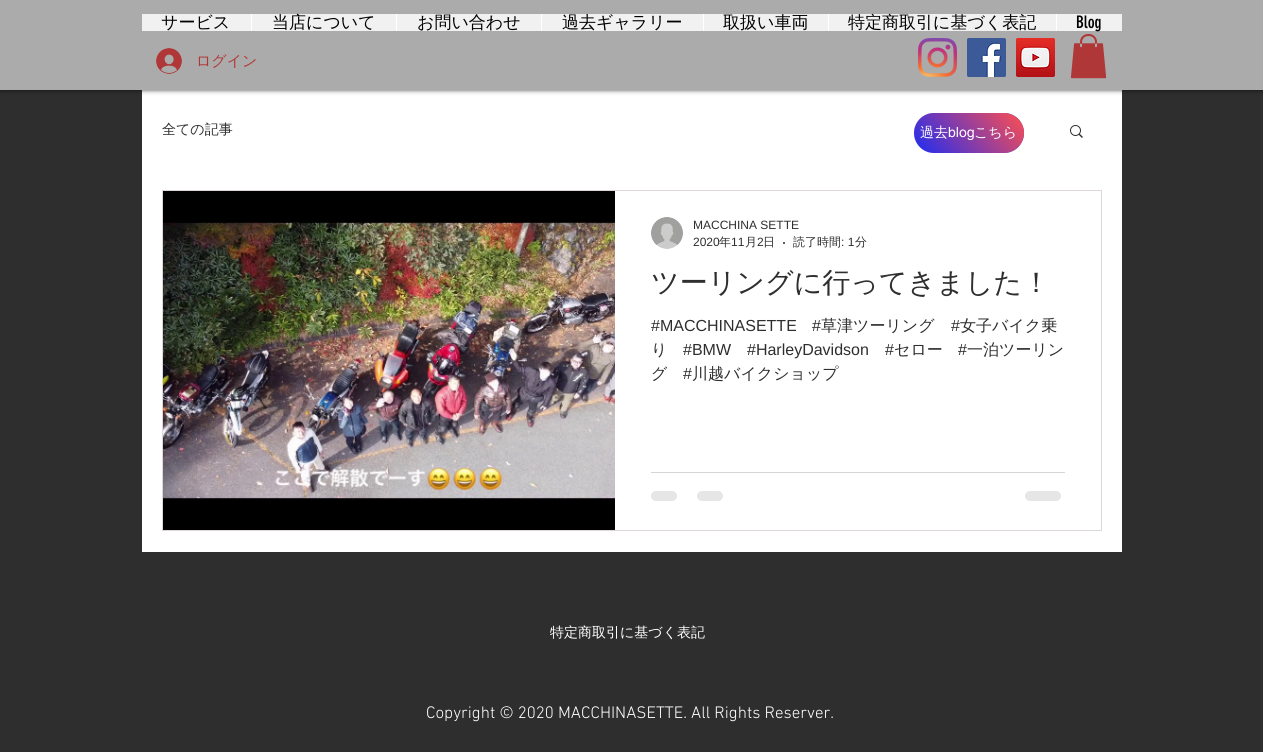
import math
import cairo

surface = cairo.ImageSurface(cairo.Format.RGB24, 1263, 752)
ctx = cairo.Context(surface)
options = cairo.FontOptions()
options.set_hint_metrics(cairo.HintMetrics.OFF)
options.set_hint_style(cairo.HintStyle.NONE)
ctx.set_font_options(options)
ctx.set_miter_limit(4)


def ink(r, g, b):
    ctx.set_source_rgb(r / 255, g / 255, b / 255)


def write(x, y, s, family, size, color, bold=False, italic=False):
    ctx.select_font_face(family, cairo.FontSlant.ITALIC if italic else cairo.FontSlant.NORMAL, cairo.FontWeight.BOLD if bold else cairo.FontWeight.NORMAL)
    ctx.set_font_size(size)
    ink(*color)
    ctx.move_to(x, y)
    ctx.show_text(s)


def block(x, y, w, h, *color):
    ink(*color)
    ctx.rectangle(x, y, w, h)
    ctx.fill()


def round_path(x, y, w, h, r):
    ctx.new_sub_path()
    for i, (u, v) in enumerate([(x + w - r, y + h - r), (x + r, y + h - r), (x + r, y + r), (x + w - r, y + r)]):
        ctx.arc(u, v, r, i * math.pi / 2, (i + 1) * math.pi / 2)
    ctx.close_path()


def blur_box(x, y, w, h, r, blur, alpha):
    ctx.push_group_with_content(cairo.Content.ALPHA)
    ctx.set_operator(cairo.Operator.SOURCE)
    for i in range(15, -16, -2):
        e = blur * i / 6
        if min(w, h) + 2 * e > 0:
            ctx.set_source_rgba(0, 0, 0, alpha * math.erfc((i - 1) / 8.5) / 2)
            round_path(x - e, y - e, w + 2 * e, h + 2 * e, max(0, min(r + e + blur * .6, min(w, h) / 2 + e)))
            ctx.fill()
    ctx.mask(ctx.pop_group())


def paste(path, x, y, w, h):
    ctx.save()
    ctx.set_source_surface(cairo.ImageSurface.create_from_png(path), x, y)
    ctx.rectangle(x, y, w, h)
    ctx.fill()
    ctx.restore()


s1 = dict(family="WenQuanYi Zen Hei Medium", size=17, color=(0, 0, 0))
s2 = dict(family="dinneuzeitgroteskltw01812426", size=17, color=(0, 0, 0))
s3 = dict(family="WenQuanYi Zen Hei Medium", size=15, color=(176, 55, 55))
s4 = dict(family="WenQuanYi Zen Hei Medium", size=14, color=(47, 46, 46))
s5 = dict(family="Liberation Sans", size=12, color=(47, 46, 46))
s6 = dict(family="WenQuanYi Zen Hei Medium", size=12, color=(47, 46, 46))
s7 = dict(family="WenQuanYi Zen Hei Medium", size=28, color=(47, 46, 46))
s8 = dict(family="Liberation Sans", size=16, color=(47, 46, 46))
s9 = dict(family="WenQuanYi Zen Hei Medium", size=16, color=(47, 46, 46))
s10 = dict(family="WenQuanYi Zen Hei Medium", size=14, color=(255, 255, 255))
s11 = dict(family="helvetica", size=14, color=(255, 255, 255))
s12 = dict(family="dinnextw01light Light", size=17, color=(255, 255, 255))

ink(47, 46, 46)
ctx.paint()
block(142, 90, 980, 462, 255, 255, 255)
ink(0, 0, 0)
blur_box(0, 0, 1263, 90, 0, 2.5, 0.7)
block(0, 0, 1263, 90, 172, 171, 171)
block(142, 14, 980, 17, 241, 241, 241)
write(161, 28, "サービス", **s1)
block(251, 14, 1, 17, 255, 255, 255)
write(272, 28, "当店について", **s1)
block(396, 14, 1, 17, 255, 255, 255)
write(417, 28, "お問い合わせ", **s1)
block(541, 14, 1, 17, 255, 255, 255)
write(562, 28, "過去ギャラリー", **s1)
block(703, 14, 1, 17, 255, 255, 255)
write(723, 28, "取扱い車両", **s1)
block(828, 14, 1, 17, 255, 255, 255)
write(848, 28, "特定商取引に基づく表記", **s1)
block(1056, 14, 1, 17, 255, 255, 255)
write(1076, 28, "Blog", **s2)
paste("pic1.png", 156, 48, 26, 26)
write(196, 66, "ログイン", **s3)
paste("pic2.png", 918, 38, 39, 39)
paste("pic3.png", 967, 38, 39, 39)
paste("pic4.png", 1016, 38, 39, 39)
paste("pic5.png", 1070, 34, 37, 45)
write(162, 134, "全ての記事", **s4)
paste("pic6.png", 1070, 125, 13, 13)
ctx.rectangle(162.5, 190.5, 939, 340)
ink(221, 215, 215)
ctx.set_line_width(1)
ctx.stroke()
paste("pic7.png", 163, 191, 452, 339)
paste("pic8.png", 651, 217, 32, 32)
write(693, 229, "MACCHINA SETTE", **s5)
write(693, 246, "2020", **s5)
write(719, 246, "年", **s6)
write(731, 246, "11", **s5)
write(745, 246, "月", **s6)
write(757, 246, "2", **s5)
write(763, 246, "日", **s6)
ctx.new_path()
ctx.arc(784, 243, 1, 0, 2 * math.pi)
ctx.fill()
write(793, 246, "読了時間", **s6)
write(841, 246, ": 1", **s5)
write(855, 246, "分", **s6)
write(651, 292, "ツーリングに行ってきました！", **s7)
write(651, 331, "#MACCHINASETTE", **s8)
write(812, 331, "#", **s8)
write(821, 331, "草津ツーリング", **s9)
write(951, 331, "#", **s8)
write(960, 331, "女子バイク乗", **s9)
write(651, 355, "り", **s9)
write(683, 355, "#BMW", **s8)
write(747, 355, "#HarleyDavidson", **s8)
write(885, 355, "#", **s8)
write(894, 355, "セロー", **s9)
write(958, 355, "#", **s8)
write(967, 355, "一泊ツーリン", **s9)
write(651, 379, "グ", **s9)
write(683, 379, "#", **s8)
write(692, 379, "川越バイクショップ", **s9)
block(651, 472, 414, 1, 213, 213, 213)
ink(230, 230, 230)
round_path(651, 491, 26, 10, 5)
ctx.fill()
round_path(697, 491, 26, 10, 5)
ctx.fill()
round_path(1025, 491, 36, 10, 5)
ctx.fill()
ink(29, 44, 243)
round_path(914, 113, 110, 40, 20)
ctx.fill()
gradient = cairo.LinearGradient(1010, 97, 928, 169)
gradient.add_color_stop_rgba(0, 1, 0.31, 0.31, 1)
gradient.add_color_stop_rgba(1, 1, 0.31, 0.31, 0)
ctx.set_source(gradient)
round_path(914, 113, 110, 40, 20)
ctx.fill()
write(920, 137, "過去", **s10)
write(948, 137, "blog", **s11)
write(974, 137, "こちら", **s10)
write(550, 637, "特定商取引に基づく表記", **s10)
write(426, 718, "Copyright © 2020 MACCHINASETTE. All Rights Reserver.", **s12)
surface.write_to_png("screenshot.png")
